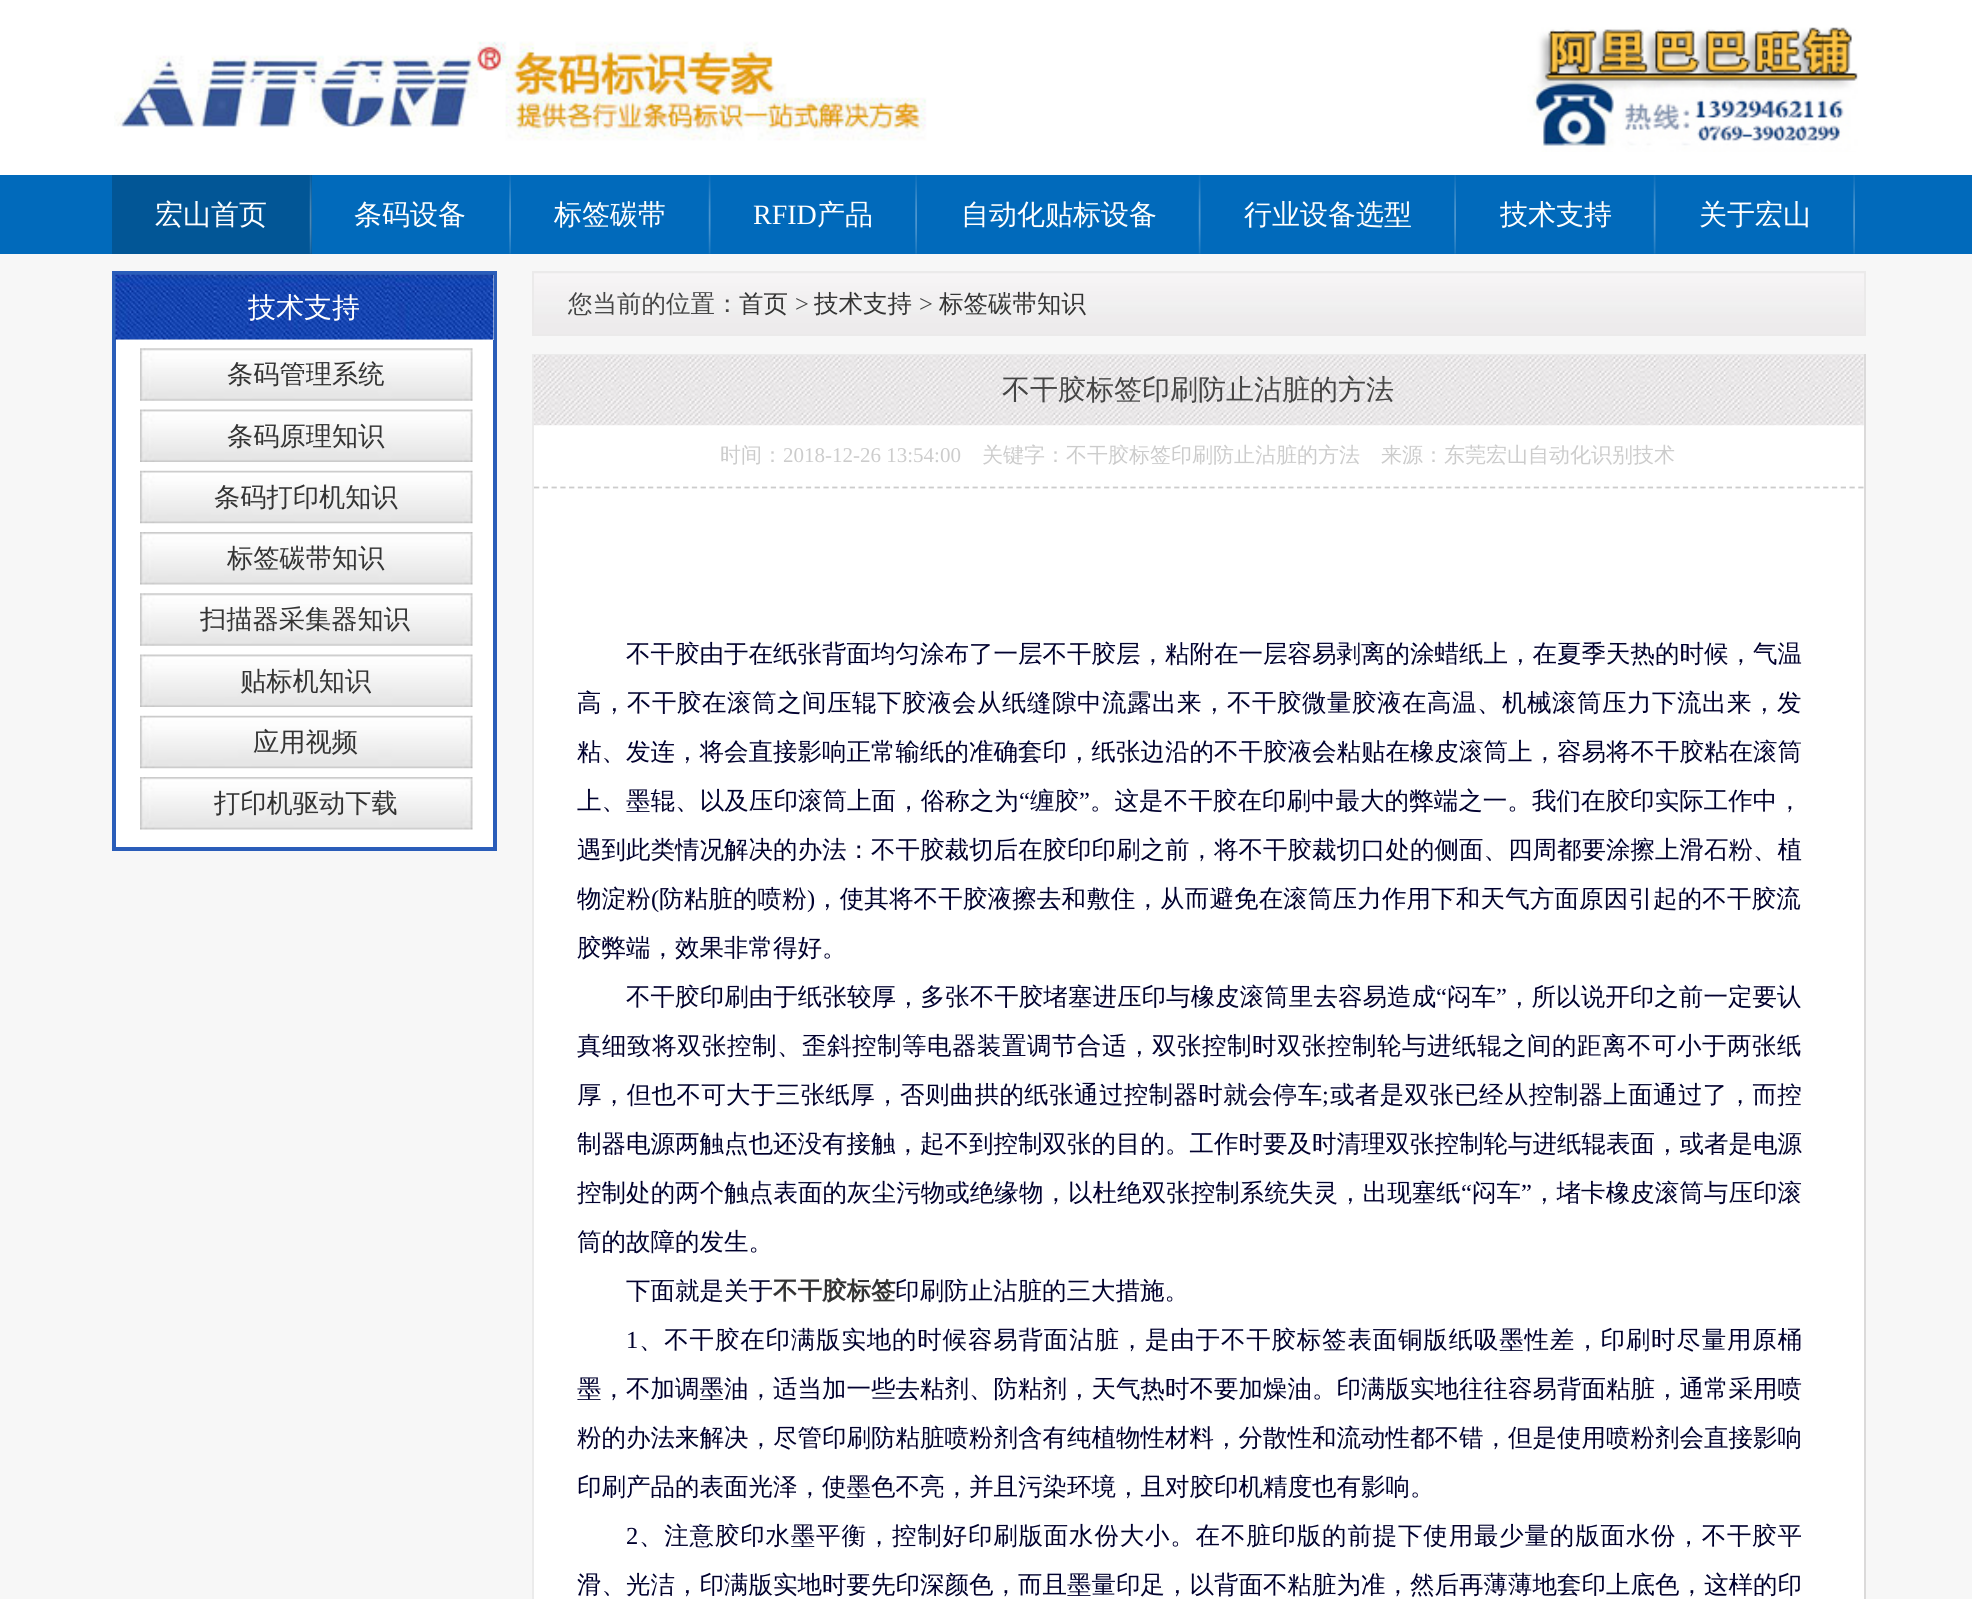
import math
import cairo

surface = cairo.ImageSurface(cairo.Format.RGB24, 1972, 1599)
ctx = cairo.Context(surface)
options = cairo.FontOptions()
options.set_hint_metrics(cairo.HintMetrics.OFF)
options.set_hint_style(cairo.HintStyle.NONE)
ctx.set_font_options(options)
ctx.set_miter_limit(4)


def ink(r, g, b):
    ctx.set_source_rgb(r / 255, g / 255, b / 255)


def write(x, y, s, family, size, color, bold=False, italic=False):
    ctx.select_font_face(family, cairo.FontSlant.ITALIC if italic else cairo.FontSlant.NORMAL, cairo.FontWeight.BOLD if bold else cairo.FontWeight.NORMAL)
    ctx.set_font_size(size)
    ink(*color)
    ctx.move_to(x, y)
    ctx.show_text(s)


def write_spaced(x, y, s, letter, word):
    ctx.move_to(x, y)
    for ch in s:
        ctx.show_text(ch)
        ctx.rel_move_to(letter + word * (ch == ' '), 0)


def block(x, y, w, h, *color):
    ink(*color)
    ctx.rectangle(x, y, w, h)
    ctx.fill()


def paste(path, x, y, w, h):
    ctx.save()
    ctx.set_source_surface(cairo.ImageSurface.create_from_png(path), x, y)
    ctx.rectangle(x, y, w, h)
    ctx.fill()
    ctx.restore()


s1 = dict(family="WenQuanYi Zen Hei Medium", size=28, color=(255, 255, 255))
s2 = dict(family="Liberation Serif", size=28, color=(255, 255, 255))
s3 = dict(family="WenQuanYi Zen Hei Medium", size=26.25, color=(51, 51, 51))
s4 = dict(family="WenQuanYi Zen Hei Medium", size=24.5, color=(68, 68, 68))
s5 = dict(family="WenQuanYi Zen Hei Medium", size=24.5, color=(51, 51, 51))
s6 = dict(family="Liberation Serif", size=24.5, color=(68, 68, 68))
s7 = dict(family="WenQuanYi Zen Hei Medium", size=28, color=(68, 68, 68))
s8 = dict(family="WenQuanYi Zen Hei Medium", size=21, color=(204, 204, 204))
s9 = dict(family="Liberation Serif", size=21, color=(204, 204, 204))
s10 = dict(family="WenQuanYi Zen Hei Medium", size=24.5, color=(0, 0, 46))
s11 = dict(family="WenQuanYi Zen Hei", size=24.5, color=(51, 51, 51), bold=True)

ink(247, 247, 247)
ctx.paint()
block(0, 0, 1972, 175, 255, 255, 255)
paste("pic1.png", 114, 27, 1744, 125)
block(0, 175, 1972, 79, 1, 106, 187)
block(112, 175, 200, 79, 2, 86, 150)
paste("pic2.png", 309, 175, 3, 79)
write(155, 224, "宏山首页", **s1)
paste("pic3.png", 509, 175, 2, 79)
write(354, 224, "条码设备", **s1)
paste("pic4.png", 708, 175, 3, 79)
write(554, 224, "标签碳带", **s1)
paste("pic3.png", 915, 175, 2, 79)
write(753, 224, "RFID", **s2)
write(817, 224, "产品", **s1)
paste("pic4.png", 1198, 175, 3, 79)
write(961, 224, "自动化贴标设备", **s1)
paste("pic3.png", 1454, 175, 2, 79)
write(1244, 224, "行业设备选型", **s1)
paste("pic4.png", 1653, 175, 3, 79)
write(1500, 224, "技术支持", **s1)
paste("pic3.png", 1853, 175, 2, 79)
write(1699, 224, "关于宏山", **s1)
block(116, 340, 377, 507, 255, 255, 255)
ctx.rectangle(114, 273, 381, 576)
ink(42, 93, 185)
ctx.set_line_width(4)
ctx.stroke()
block(116, 275, 378, 65, 240, 240, 240)
paste("pic5.png", 115, 274, 379, 66)
write(248, 317, "技术支持", **s1)
paste("pic6.png", 140, 348, 333, 53)
write(227, 383, "条码管理系统", **s3)
paste("pic7.png", 140, 409, 333, 53)
write(227, 445, "条码原理知识", **s3)
paste("pic8.png", 140, 470, 333, 54)
write(214, 506, "条码打印机知识", **s3)
paste("pic9.png", 140, 532, 333, 53)
write(227, 567, "标签碳带知识", **s3)
paste("pic6.png", 140, 593, 333, 53)
write(200, 628, "扫描器采集器知识", **s3)
paste("pic7.png", 140, 654, 333, 53)
write(240, 690, "贴标机知识", **s3)
paste("pic8.png", 140, 715, 333, 54)
write(253, 751, "应用视频", **s3)
paste("pic9.png", 140, 777, 333, 53)
write(214, 812, "打印机驱动下载", **s3)
paste("pic10.png", 534, 273, 1330, 61)
ctx.rectangle(533, 272, 1332, 63)
ink(235, 234, 234)
ctx.set_line_width(2)
ctx.stroke()
write(568, 312, "您当前的位置：", **s4)
write(739, 312, "首页", **s5)
write(795, 312, ">", **s6)
write(814, 312, "技术支持", **s5)
write(919, 312, ">", **s6)
write(939, 312, "标签碳带知识", **s5)
block(534, 356, 1330, 1243, 255, 255, 255)
block(532, 354, 1334, 2, 235, 235, 235)
block(1864, 354, 2, 1245, 219, 218, 218)
block(532, 354, 2, 1245, 235, 235, 235)
paste("pic11.png", 533, 355, 1331, 71)
write(1002, 399, "不干胶标签印刷防止沾脏的方法", **s7)
ctx.new_path()
ctx.move_to(534, 487.5)
ctx.line_to(1864, 487.5)
ink(204, 204, 204)
ctx.set_line_width(1.8)
ctx.set_dash([5.25, 3.52])
ctx.stroke()
write(720, 462, "时间：", **s8)
write(783, 462, "2018-12-26 13:54:00", **s9)
write(982, 462, "关键字：不干胶标签印刷防止沾脏的方法", **s8)
write(1381, 462, "来源：东莞宏山自动化识别技术", **s8)
write(626, 662, "不干胶由于在纸张背面均匀涂布了一层不干胶层，粘附在一层容易剥离的涂蜡纸上，在夏季天热的时候，气温", **s10)
write_spaced(577, 711, "高，不干胶在滚筒之间压辊下胶液会从纸缝隙中流露出来，不干胶微量胶液在高温、机械滚筒压力下流出来，发", 0.5, 0)
write(577, 760, "粘、发连，将会直接影响正常输纸的准确套印，纸张边沿的不干胶液会粘贴在橡皮滚筒上，容易将不干胶粘在滚筒", **s10)
write_spaced(577, 809, "上、墨辊、以及压印滚筒上面，俗称之为", 0.05, 0)
ctx.select_font_face("Liberation Serif")
write_spaced(1019, 809, "“", 0.05, 0)
ctx.select_font_face("WenQuanYi Zen Hei Medium")
write_spaced(1030, 809, "缠胶", 0.05, 0)
ctx.select_font_face("Liberation Serif")
write_spaced(1079, 809, "”", 0.05, 0)
ctx.select_font_face("WenQuanYi Zen Hei Medium")
write_spaced(1090, 809, "。这是不干胶在印刷中最大的弊端之一。我们在胶印实际工作中，", 0.05, 0)
write(577, 858, "遇到此类情况解决的办法：不干胶裁切后在胶印印刷之前，将不干胶裁切口处的侧面、四周都要涂擦上滑石粉、植", **s10)
write_spaced(577, 907, "物淀粉", 0.15, 0)
ctx.select_font_face("Liberation Serif")
write_spaced(651, 907, "(", 0.15, 0)
ctx.select_font_face("WenQuanYi Zen Hei Medium")
write_spaced(659, 907, "防粘脏的喷粉", 0.15, 0)
ctx.select_font_face("Liberation Serif")
write_spaced(807, 907, ")", 0.15, 0)
ctx.select_font_face("WenQuanYi Zen Hei Medium")
write_spaced(815, 907, "，使其将不干胶液擦去和敷住，从而避免在滚筒压力作用下和天气方面原因引起的不干胶流", 0.15, 0)
write(577, 956, "胶弊端，效果非常得好。", **s10)
write_spaced(626, 1005, "不干胶印刷由于纸张较厚，多张不干胶堵塞进压印与橡皮滚筒里去容易造成", 0.05, 0)
ctx.select_font_face("Liberation Serif")
write_spaced(1436, 1005, "“", 0.05, 0)
ctx.select_font_face("WenQuanYi Zen Hei Medium")
write_spaced(1447, 1005, "闷车", 0.05, 0)
ctx.select_font_face("Liberation Serif")
write_spaced(1496, 1005, "”", 0.05, 0)
ctx.select_font_face("WenQuanYi Zen Hei Medium")
write_spaced(1507, 1005, "，所以说开印之前一定要认", 0.05, 0)
write_spaced(577, 1054, "真细致将双张控制、歪斜控制等电器装置调节合适，双张控制时双张控制轮与进纸辊之间的距离不可小于两张纸", 0.5, 0)
write_spaced(577, 1103, "厚，但也不可大于三张纸厚，否则曲拱的纸张通过控制器时就会停车", 0.35, 0)
ctx.select_font_face("Liberation Serif")
write_spaced(1322, 1103, ";", 0.35, 0)
ctx.select_font_face("WenQuanYi Zen Hei Medium")
write_spaced(1330, 1103, "或者是双张已经从控制器上面通过了，而控", 0.35, 0)
write(577, 1152, "制器电源两触点也还没有接触，起不到控制双张的目的。工作时要及时清理双张控制轮与进纸辊表面，或者是电源", **s10)
write_spaced(577, 1201, "控制处的两个触点表面的灰尘污物或绝缘物，以杜绝双张控制系统失灵，出现塞纸", 0.05, 0)
ctx.select_font_face("Liberation Serif")
write_spaced(1461, 1201, "“", 0.05, 0)
ctx.select_font_face("WenQuanYi Zen Hei Medium")
write_spaced(1472, 1201, "闷车", 0.05, 0)
ctx.select_font_face("Liberation Serif")
write_spaced(1521, 1201, "”", 0.05, 0)
ctx.select_font_face("WenQuanYi Zen Hei Medium")
write_spaced(1532, 1201, "，堵卡橡皮滚筒与压印滚", 0.05, 0)
write(577, 1250, "筒的故障的发生。", **s10)
write(626, 1299, "下面就是关于", **s10)
write(773, 1299, "不干胶标签", **s11)
write(895, 1299, "印刷防止沾脏的三大措施。", **s10)
ctx.select_font_face("Liberation Serif")
write_spaced(626, 1348, "1", 0.8, 0)
ctx.select_font_face("WenQuanYi Zen Hei Medium")
write_spaced(639, 1348, "、不干胶在印满版实地的时候容易背面沾脏，是由于不干胶标签表面铜版纸吸墨性差，印刷时尽量用原桶", 0.8, 0)
write(577, 1397, "墨，不加调墨油，适当加一些去粘剂、防粘剂，天气热时不要加燥油。印满版实地往往容易背面粘脏，通常采用喷", **s10)
write(577, 1446, "粉的办法来解决，尽管印刷防粘脏喷粉剂含有纯植物性材料，分散性和流动性都不错，但是使用喷粉剂会直接影响", **s10)
write(577, 1495, "印刷产品的表面光泽，使墨色不亮，并且污染环境，且对胶印机精度也有影响。", **s10)
ctx.select_font_face("Liberation Serif")
write_spaced(626, 1544, "2", 0.8, 0)
ctx.select_font_face("WenQuanYi Zen Hei Medium")
write_spaced(639, 1544, "、注意胶印水墨平衡，控制好印刷版面水份大小。在不脏印版的前提下使用最少量的版面水份，不干胶平", 0.8, 0)
write(577, 1593, "滑、光洁，印满版实地时要先印深颜色，而且墨量印足，以背面不粘脏为准，然后再薄薄地套印上底色，这样的印", **s10)
surface.write_to_png("screenshot.png")
